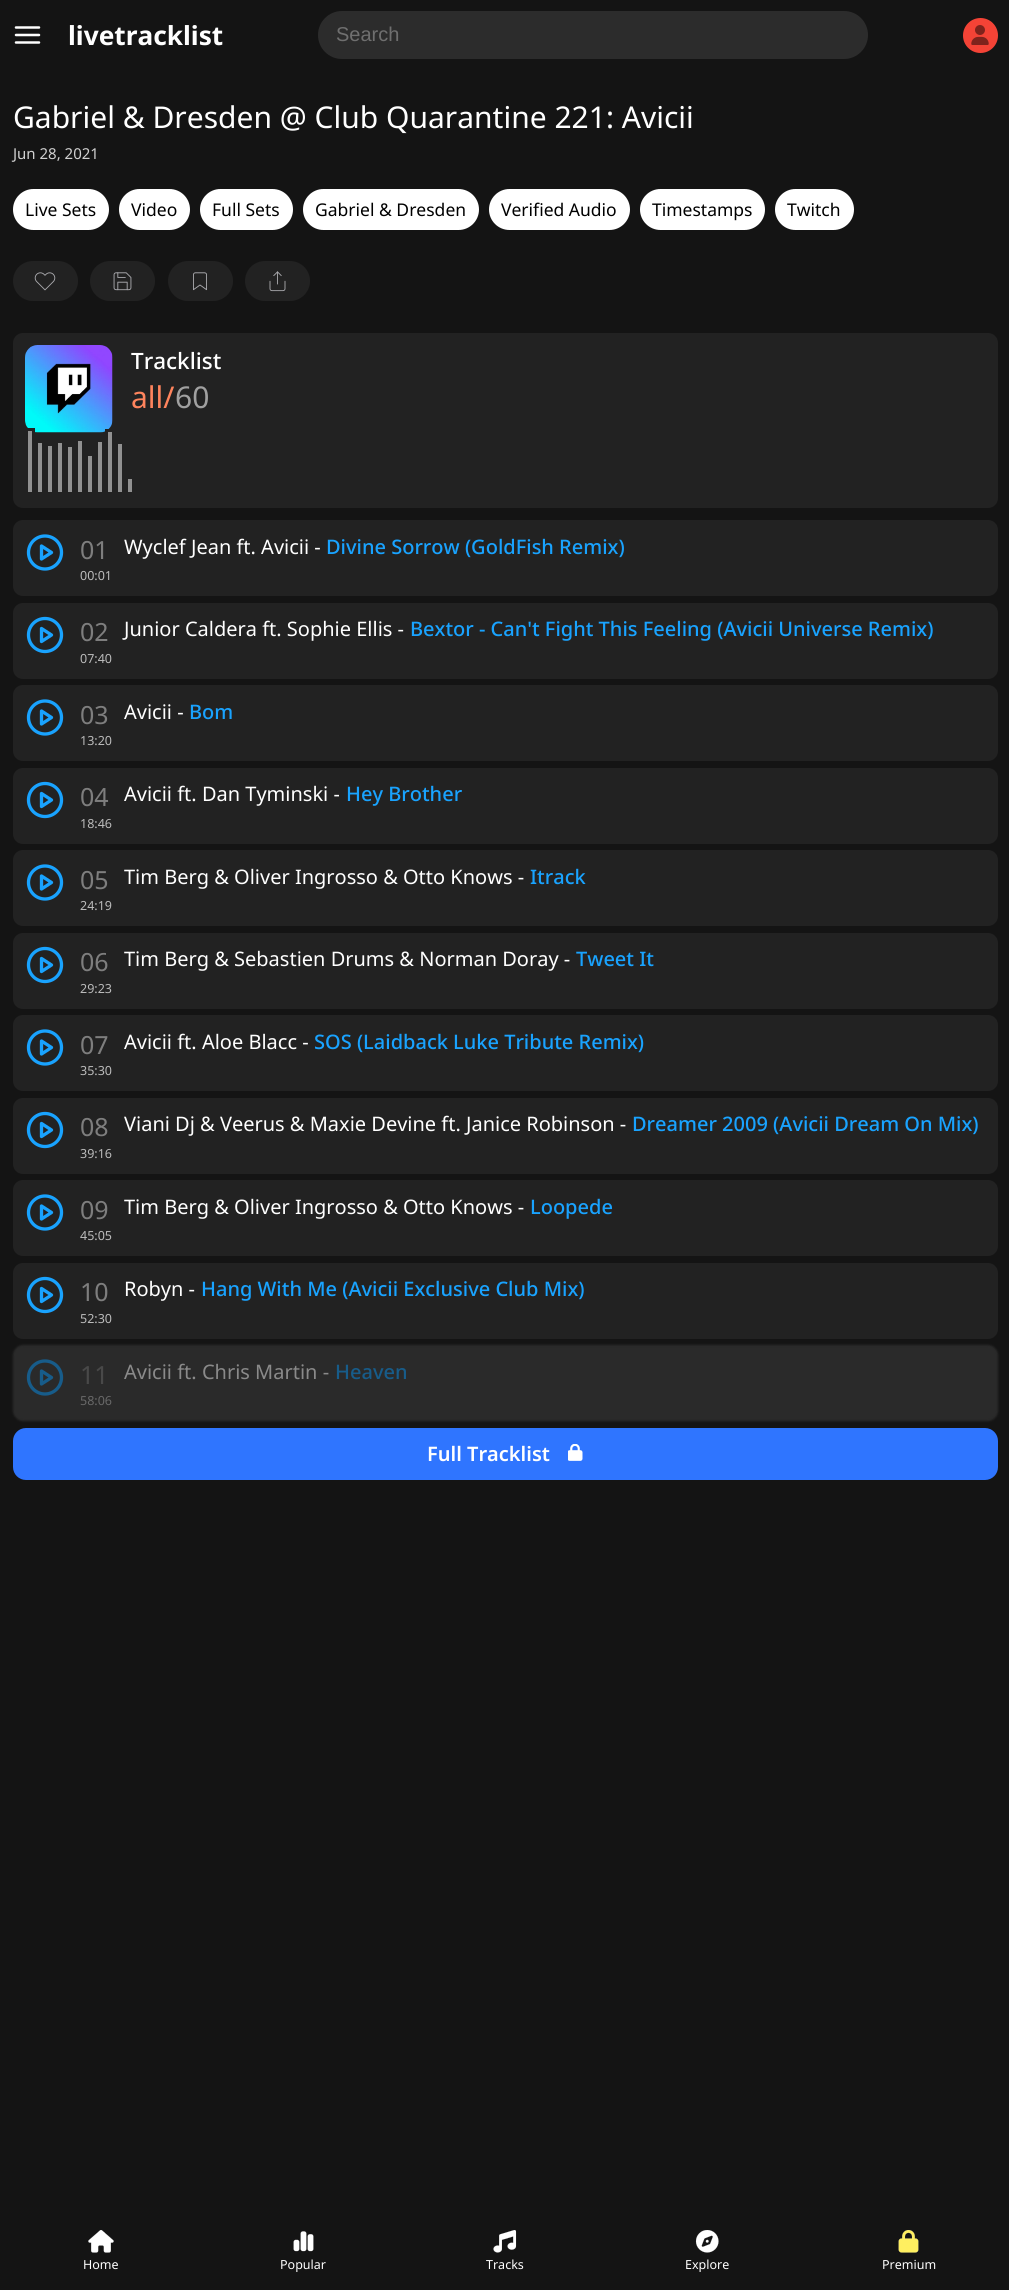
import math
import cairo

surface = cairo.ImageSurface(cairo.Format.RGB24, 1009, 2290)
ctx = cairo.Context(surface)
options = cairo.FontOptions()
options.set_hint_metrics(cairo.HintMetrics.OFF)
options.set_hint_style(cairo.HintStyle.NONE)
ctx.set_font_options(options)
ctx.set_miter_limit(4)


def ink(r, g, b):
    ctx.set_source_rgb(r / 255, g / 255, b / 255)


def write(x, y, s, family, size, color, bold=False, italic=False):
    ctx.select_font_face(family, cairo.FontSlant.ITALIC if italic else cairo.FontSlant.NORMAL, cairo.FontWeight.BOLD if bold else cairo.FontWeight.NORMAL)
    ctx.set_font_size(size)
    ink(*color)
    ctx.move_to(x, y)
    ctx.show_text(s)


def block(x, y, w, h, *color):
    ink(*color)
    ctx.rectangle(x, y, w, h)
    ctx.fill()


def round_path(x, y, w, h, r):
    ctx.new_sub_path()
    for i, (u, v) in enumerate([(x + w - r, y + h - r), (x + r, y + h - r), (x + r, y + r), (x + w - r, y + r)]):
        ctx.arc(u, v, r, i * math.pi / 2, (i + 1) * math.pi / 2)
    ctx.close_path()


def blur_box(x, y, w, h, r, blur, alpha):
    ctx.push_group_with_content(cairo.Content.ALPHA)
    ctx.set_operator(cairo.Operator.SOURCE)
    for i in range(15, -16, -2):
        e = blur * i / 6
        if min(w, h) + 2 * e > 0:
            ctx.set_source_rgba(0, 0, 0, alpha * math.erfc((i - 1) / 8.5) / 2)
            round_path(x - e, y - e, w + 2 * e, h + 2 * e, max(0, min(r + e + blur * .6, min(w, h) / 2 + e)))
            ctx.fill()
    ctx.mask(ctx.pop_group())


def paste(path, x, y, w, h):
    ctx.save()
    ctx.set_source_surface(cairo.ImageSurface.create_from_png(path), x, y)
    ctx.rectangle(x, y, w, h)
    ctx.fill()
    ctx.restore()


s1 = dict(family="Noto Sans", size=26.25, color=(255, 255, 255), bold=True)
s2 = dict(family="Liberation Sans", size=20, color=(111, 111, 111))
s3 = dict(family="Noto Sans", size=30, color=(255, 255, 255))
s4 = dict(family="Noto Sans", size=15, color=(208, 208, 208))
s5 = dict(family="Noto Sans", size=17.5, color=(0, 0, 0))
s6 = dict(family="Noto Sans Medium", size=22.5, color=(255, 255, 255))
s7 = dict(family="Noto Sans", size=30, color=(255, 132, 93))
s8 = dict(family="Noto Sans", size=30, color=(160, 160, 160))
s9 = dict(family="Noto Sans", size=25, color=(126, 126, 126))
s10 = dict(family="Noto Sans", size=12.5, color=(187, 187, 187))
s11 = dict(family="Noto Sans", size=20, color=(255, 255, 255))
s12 = dict(family="Noto Sans Medium", size=20, color=(25, 163, 255))
s13 = dict(family="Noto Sans", size=25, color=(73, 73, 73))
s14 = dict(family="Noto Sans", size=12.5, color=(104, 104, 104))
s15 = dict(family="Noto Sans", size=20, color=(138, 138, 138))
s16 = dict(family="Noto Sans Medium", size=20, color=(23, 92, 138))
s17 = dict(family="Noto Sans SemiBold", size=20, color=(255, 255, 255))
s18 = dict(family="Noto Sans", size=12.5, color=(255, 255, 255))

ink(20, 20, 20)
ctx.paint()
ctx.new_path()
ctx.move_to(16, 35)
ctx.line_to(39, 35)
ctx.move_to(16, 27.5)
ctx.line_to(39, 27.5)
ctx.move_to(16, 42.5)
ctx.line_to(39, 42.5)
ink(255, 255, 255)
ctx.set_line_width(2.5)
ctx.set_line_cap(cairo.LineCap.ROUND)
ctx.set_line_join(cairo.LineJoin.ROUND)
ctx.stroke()
write(68, 45, "livetracklist", **s1)
ink(44, 44, 44)
round_path(318, 11, 550, 48, 24)
ctx.fill()
write(336, 41, "Search", **s2)
ink(244, 67, 54)
ctx.new_path()
ctx.arc(980.5, 35.5, 17.5, 0, 2 * math.pi)
ctx.fill()
paste("pic1.png", 971, 25, 18, 20)
write(13, 128, "Gabriel & Dresden @ Club Quarantine 221: Avicii", **s3)
write(13, 159, "Jun 28, 2021", **s4)
ink(255, 255, 255)
round_path(13, 189, 96, 41, 20.5)
ctx.fill()
write(25, 216, "Live Sets", **s5)
ink(255, 255, 255)
round_path(119, 189, 71, 41, 20.5)
ctx.fill()
write(131, 216, "Video", **s5)
ink(255, 255, 255)
round_path(200, 189, 93, 41, 20.5)
ctx.fill()
write(212, 216, "Full Sets", **s5)
ink(255, 255, 255)
round_path(303, 189, 176, 41, 20.5)
ctx.fill()
write(315, 216, "Gabriel & Dresden", **s5)
ink(255, 255, 255)
round_path(489, 189, 141, 41, 20.5)
ctx.fill()
write(501, 216, "Verified Audio", **s5)
ink(255, 255, 255)
round_path(640, 189, 125, 41, 20.5)
ctx.fill()
write(652, 216, "Timestamps", **s5)
ink(255, 255, 255)
round_path(775, 189, 79, 41, 20.5)
ctx.fill()
write(787, 216, "Twitch", **s5)
ink(34, 34, 34)
round_path(13, 261, 65, 40, 20)
ctx.fill()
paste("pic2.png", 34, 272, 22, 19)
round_path(90, 261, 65, 40, 20)
ctx.fill()
paste("pic3.png", 113, 272, 19, 19)
round_path(168, 261, 65, 40, 20)
ctx.fill()
paste("pic4.png", 193, 272, 14, 19)
round_path(245, 261, 65, 40, 20)
ctx.fill()
paste("pic5.png", 269, 271, 17, 21)
round_path(13, 333, 985, 175, 10)
ctx.fill()
paste("pic6.png", 25, 345, 88, 88)
write(131, 369, "Tracklist", **s6)
write(131, 408, "all/", **s7)
write(175, 408, "60", **s8)
ctx.set_source_rgba(1, 1, 1, 0.5)
ctx.rectangle(26.5, 429.5, 7, 64)
ctx.fill_preserve()
ink(34, 34, 34)
ctx.set_line_width(3)
ctx.set_line_cap(cairo.LineCap.BUTT)
ctx.set_line_join(cairo.LineJoin.MITER)
ctx.stroke()
block(38, 443, 4, 49, 145, 145, 145)
block(48, 446, 4, 46, 145, 145, 145)
block(58, 443, 4, 49, 145, 145, 145)
block(68, 447, 4, 45, 145, 145, 145)
block(78, 441, 4, 51, 145, 145, 145)
block(88, 456, 4, 36, 145, 145, 145)
block(98, 442, 4, 50, 145, 145, 145)
ctx.set_source_rgba(1, 1, 1, 0.5)
ctx.rectangle(106.5, 430.5, 7, 63)
ctx.fill_preserve()
ink(34, 34, 34)
ctx.stroke()
block(118, 444, 4, 48, 145, 145, 145)
block(128, 479, 4, 13, 145, 145, 145)
ink(34, 34, 34)
round_path(13, 520, 985, 76, 10)
ctx.fill()
ctx.arc(45, 552.5, 16.5, 0, 2 * math.pi)
ink(25, 163, 255)
ctx.set_line_width(3.3)
ctx.stroke()
ctx.new_path()
ctx.move_to(41.5, 546)
ctx.line_to(51.5, 552.5)
ctx.line_to(41.5, 559)
ctx.close_path()
ctx.set_line_cap(cairo.LineCap.ROUND)
ctx.set_line_join(cairo.LineJoin.ROUND)
ctx.stroke()
write(80, 559, "01", **s9)
write(80, 580, "00:01", **s10)
write(124, 554, "Wyclef Jean ft. Avicii -", **s11)
write(326, 554, "Divine Sorrow (GoldFish Remix)", **s12)
ink(34, 34, 34)
round_path(13, 603, 985, 76, 10)
ctx.fill()
ctx.arc(45, 635, 16.5, 0, 2 * math.pi)
ink(25, 163, 255)
ctx.set_line_cap(cairo.LineCap.BUTT)
ctx.set_line_join(cairo.LineJoin.MITER)
ctx.stroke()
ctx.new_path()
ctx.move_to(41.5, 628.5)
ctx.line_to(51.5, 635)
ctx.line_to(41.5, 641.5)
ctx.close_path()
ctx.set_line_cap(cairo.LineCap.ROUND)
ctx.set_line_join(cairo.LineJoin.ROUND)
ctx.stroke()
write(80, 641, "02", **s9)
write(80, 663, "07:40", **s10)
write(124, 636, "Junior Caldera ft. Sophie Ellis -", **s11)
write(410, 636, "Bextor - Can't Fight This Feeling (Avicii Universe Remix)", **s12)
ink(34, 34, 34)
round_path(13, 685, 985, 76, 10)
ctx.fill()
ctx.arc(45, 717.5, 16.5, 0, 2 * math.pi)
ink(25, 163, 255)
ctx.set_line_cap(cairo.LineCap.BUTT)
ctx.set_line_join(cairo.LineJoin.MITER)
ctx.stroke()
ctx.new_path()
ctx.move_to(41.5, 711)
ctx.line_to(51.5, 717.5)
ctx.line_to(41.5, 724)
ctx.close_path()
ctx.set_line_cap(cairo.LineCap.ROUND)
ctx.set_line_join(cairo.LineJoin.ROUND)
ctx.stroke()
write(80, 724, "03", **s9)
write(80, 745, "13:20", **s10)
write(124, 719, "Avicii -", **s11)
write(189, 719, "Bom", **s12)
ink(34, 34, 34)
round_path(13, 768, 985, 76, 10)
ctx.fill()
ctx.arc(45, 800, 16.5, 0, 2 * math.pi)
ink(25, 163, 255)
ctx.set_line_cap(cairo.LineCap.BUTT)
ctx.set_line_join(cairo.LineJoin.MITER)
ctx.stroke()
ctx.new_path()
ctx.move_to(41.5, 793.5)
ctx.line_to(51.5, 800)
ctx.line_to(41.5, 806.5)
ctx.close_path()
ctx.set_line_cap(cairo.LineCap.ROUND)
ctx.set_line_join(cairo.LineJoin.ROUND)
ctx.stroke()
write(80, 806, "04", **s9)
write(80, 828, "18:46", **s10)
write(124, 801, "Avicii ft. Dan Tyminski -", **s11)
write(346, 801, "Hey Brother", **s12)
ink(34, 34, 34)
round_path(13, 850, 985, 76, 10)
ctx.fill()
ctx.arc(45, 882.5, 16.5, 0, 2 * math.pi)
ink(25, 163, 255)
ctx.set_line_cap(cairo.LineCap.BUTT)
ctx.set_line_join(cairo.LineJoin.MITER)
ctx.stroke()
ctx.new_path()
ctx.move_to(41.5, 876)
ctx.line_to(51.5, 882.5)
ctx.line_to(41.5, 889)
ctx.close_path()
ctx.set_line_cap(cairo.LineCap.ROUND)
ctx.set_line_join(cairo.LineJoin.ROUND)
ctx.stroke()
write(80, 889, "05", **s9)
write(80, 910, "24:19", **s10)
write(124, 884, "Tim Berg & Oliver Ingrosso & Otto Knows -", **s11)
write(530, 884, "Itrack", **s12)
ink(34, 34, 34)
round_path(13, 933, 985, 76, 10)
ctx.fill()
ctx.arc(45, 965, 16.5, 0, 2 * math.pi)
ink(25, 163, 255)
ctx.set_line_cap(cairo.LineCap.BUTT)
ctx.set_line_join(cairo.LineJoin.MITER)
ctx.stroke()
ctx.new_path()
ctx.move_to(41.5, 958.5)
ctx.line_to(51.5, 965)
ctx.line_to(41.5, 971.5)
ctx.close_path()
ctx.set_line_cap(cairo.LineCap.ROUND)
ctx.set_line_join(cairo.LineJoin.ROUND)
ctx.stroke()
write(80, 971, "06", **s9)
write(80, 993, "29:23", **s10)
write(124, 966, "Tim Berg & Sebastien Drums & Norman Doray -", **s11)
write(576, 966, "Tweet It", **s12)
ink(34, 34, 34)
round_path(13, 1015, 985, 76, 10)
ctx.fill()
ctx.arc(45, 1047.5, 16.5, 0, 2 * math.pi)
ink(25, 163, 255)
ctx.set_line_cap(cairo.LineCap.BUTT)
ctx.set_line_join(cairo.LineJoin.MITER)
ctx.stroke()
ctx.new_path()
ctx.move_to(41.5, 1041)
ctx.line_to(51.5, 1047.5)
ctx.line_to(41.5, 1054)
ctx.close_path()
ctx.set_line_cap(cairo.LineCap.ROUND)
ctx.set_line_join(cairo.LineJoin.ROUND)
ctx.stroke()
write(80, 1054, "07", **s9)
write(80, 1075, "35:30", **s10)
write(124, 1049, "Avicii ft. Aloe Blacc -", **s11)
write(314, 1049, "SOS (Laidback Luke Tribute Remix)", **s12)
ink(34, 34, 34)
round_path(13, 1098, 985, 76, 10)
ctx.fill()
ctx.arc(45, 1130, 16.5, 0, 2 * math.pi)
ink(25, 163, 255)
ctx.set_line_cap(cairo.LineCap.BUTT)
ctx.set_line_join(cairo.LineJoin.MITER)
ctx.stroke()
ctx.new_path()
ctx.move_to(41.5, 1123.5)
ctx.line_to(51.5, 1130)
ctx.line_to(41.5, 1136.5)
ctx.close_path()
ctx.set_line_cap(cairo.LineCap.ROUND)
ctx.set_line_join(cairo.LineJoin.ROUND)
ctx.stroke()
write(80, 1136, "08", **s9)
write(80, 1158, "39:16", **s10)
write(124, 1131, "Viani Dj & Veerus & Maxie Devine ft. Janice Robinson -", **s11)
write(632, 1131, "Dreamer 2009 (Avicii Dream On Mix)", **s12)
ink(34, 34, 34)
round_path(13, 1180, 985, 76, 10)
ctx.fill()
ctx.arc(45, 1212.5, 16.5, 0, 2 * math.pi)
ink(25, 163, 255)
ctx.set_line_cap(cairo.LineCap.BUTT)
ctx.set_line_join(cairo.LineJoin.MITER)
ctx.stroke()
ctx.new_path()
ctx.move_to(41.5, 1206)
ctx.line_to(51.5, 1212.5)
ctx.line_to(41.5, 1219)
ctx.close_path()
ctx.set_line_cap(cairo.LineCap.ROUND)
ctx.set_line_join(cairo.LineJoin.ROUND)
ctx.stroke()
write(80, 1219, "09", **s9)
write(80, 1240, "45:05", **s10)
write(124, 1214, "Tim Berg & Oliver Ingrosso & Otto Knows -", **s11)
write(530, 1214, "Loopede", **s12)
ink(34, 34, 34)
round_path(13, 1263, 985, 76, 10)
ctx.fill()
ctx.arc(45, 1295, 16.5, 0, 2 * math.pi)
ink(25, 163, 255)
ctx.set_line_cap(cairo.LineCap.BUTT)
ctx.set_line_join(cairo.LineJoin.MITER)
ctx.stroke()
ctx.new_path()
ctx.move_to(41.5, 1288.5)
ctx.line_to(51.5, 1295)
ctx.line_to(41.5, 1301.5)
ctx.close_path()
ctx.set_line_cap(cairo.LineCap.ROUND)
ctx.set_line_join(cairo.LineJoin.ROUND)
ctx.stroke()
write(80, 1301, "10", **s9)
write(80, 1323, "52:30", **s10)
write(124, 1296, "Robyn -", **s11)
write(201, 1296, "Hang With Me (Avicii Exclusive Club Mix)", **s12)
ink(138, 138, 138)
blur_box(13, 1345, 985, 76, 10, 1, 0.19)
ctx.arc(45, 1377.5, 16.5, 0, 2 * math.pi)
ink(23, 92, 138)
ctx.set_line_cap(cairo.LineCap.BUTT)
ctx.set_line_join(cairo.LineJoin.MITER)
ctx.stroke()
ctx.new_path()
ctx.move_to(41.5, 1371)
ctx.line_to(51.5, 1377.5)
ctx.line_to(41.5, 1384)
ctx.close_path()
ctx.set_line_cap(cairo.LineCap.ROUND)
ctx.set_line_join(cairo.LineJoin.ROUND)
ctx.stroke()
write(80, 1384, "11", **s13)
write(80, 1405, "58:06", **s14)
write(124, 1379, "Avicii ft. Chris Martin -", **s15)
write(335, 1379, "Heaven", **s16)
ink(47, 117, 255)
round_path(13, 1428, 985, 52, 13)
ctx.fill()
write(427, 1461, "Full Tracklist", **s17)
paste("pic7.png", 568, 1444, 15, 17)
paste("pic8.png", 88, 2230, 26, 23)
write(83, 2269, "Home", **s18)
paste("pic9.png", 293, 2231, 21, 21)
write(280, 2269, "Popular", **s18)
paste("pic10.png", 493, 2230, 24, 23)
write(486, 2269, "Tracks", **s18)
paste("pic11.png", 695, 2230, 24, 23)
write(685, 2269, "Explore", **s18)
paste("pic12.png", 898, 2230, 21, 23)
write(882, 2269, "Premium", **s18)
surface.write_to_png("screenshot.png")
